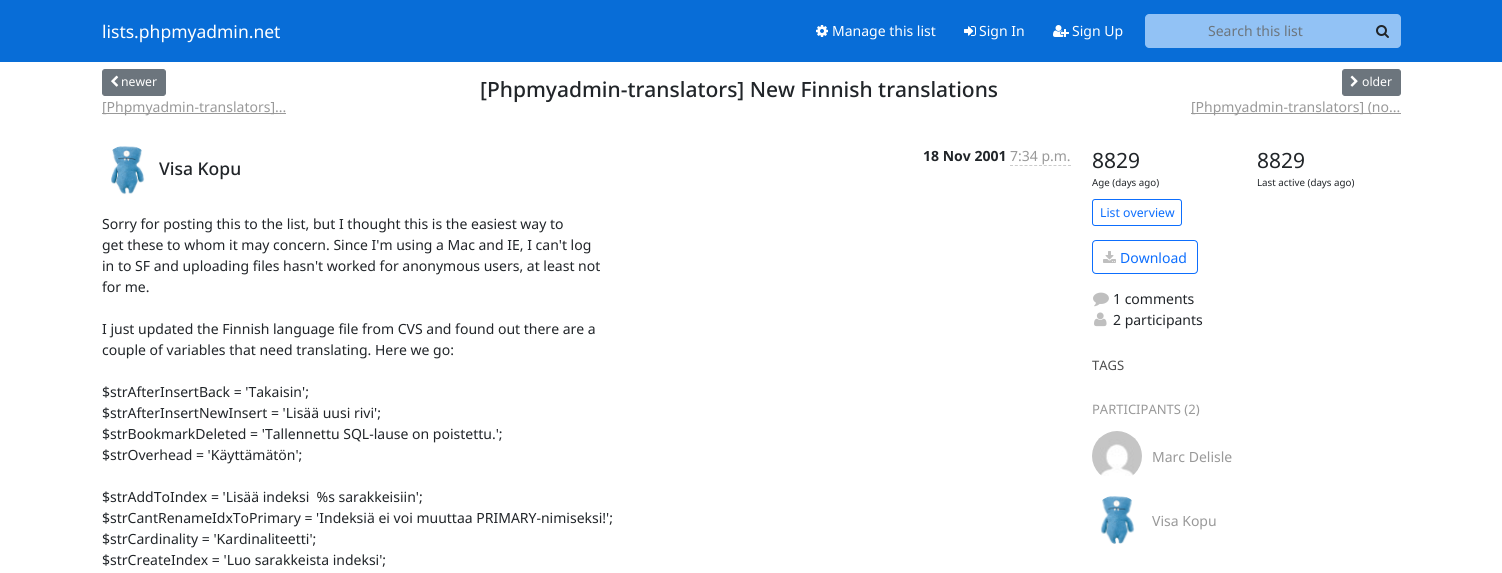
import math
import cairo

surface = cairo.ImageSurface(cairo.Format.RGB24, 1502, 573)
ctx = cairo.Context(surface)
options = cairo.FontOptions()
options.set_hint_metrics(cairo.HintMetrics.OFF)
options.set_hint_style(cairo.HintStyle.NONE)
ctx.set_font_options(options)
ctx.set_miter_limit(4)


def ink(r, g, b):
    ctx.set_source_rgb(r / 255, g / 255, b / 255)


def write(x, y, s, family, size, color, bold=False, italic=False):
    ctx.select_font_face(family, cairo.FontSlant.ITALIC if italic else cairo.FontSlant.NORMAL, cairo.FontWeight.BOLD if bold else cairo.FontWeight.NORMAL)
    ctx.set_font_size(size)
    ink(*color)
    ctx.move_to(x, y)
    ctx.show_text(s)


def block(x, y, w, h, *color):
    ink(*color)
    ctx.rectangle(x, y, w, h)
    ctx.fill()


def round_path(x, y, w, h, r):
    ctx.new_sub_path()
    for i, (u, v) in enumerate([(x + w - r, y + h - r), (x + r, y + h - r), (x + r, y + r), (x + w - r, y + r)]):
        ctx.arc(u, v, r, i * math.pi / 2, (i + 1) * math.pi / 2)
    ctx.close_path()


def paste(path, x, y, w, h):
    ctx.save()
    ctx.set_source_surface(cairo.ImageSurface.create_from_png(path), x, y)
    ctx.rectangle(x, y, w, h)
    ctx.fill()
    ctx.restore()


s1 = dict(family="Noto Sans", size=17.5, color=(255, 255, 255))
s2 = dict(family="Noto Sans", size=14, color=(255, 255, 255))
s3 = dict(family="Noto Sans", size=14, color=(108, 117, 125))
s4 = dict(family="Noto Sans", size=12.25, color=(255, 255, 255))
s5 = dict(family="Noto Sans", size=14, color=(153, 153, 153))
s6 = dict(family="Noto Sans Medium", size=21, color=(33, 37, 41))
s7 = dict(family="Noto Sans", size=14, color=(33, 37, 41), bold=True)
s8 = dict(family="Noto Sans Medium", size=17.5, color=(33, 37, 41))
s9 = dict(family="Noto Sans", size=14, color=(33, 37, 41))
s10 = dict(family="Noto Sans", size=21, color=(33, 37, 41))
s11 = dict(family="Noto Sans", size=9.75, color=(33, 37, 41))
s12 = dict(family="Noto Sans", size=12.25, color=(13, 110, 253))
s13 = dict(family="Noto Sans", size=14, color=(13, 110, 253))
s14 = dict(family="Noto Sans", size=13, color=(77, 77, 77))
s15 = dict(family="Noto Sans", size=13, color=(153, 153, 153))

ink(255, 255, 255)
ctx.paint()
block(0, 0, 1502, 62, 8, 109, 215)
write(102, 38, "lists.phpmyadmin.net", **s1)
paste("pic1.png", 816, 25, 12, 12)
write(832, 36, "Manage this list", **s2)
paste("pic2.png", 964, 26, 12, 10)
write(979, 36, "Sign In", **s2)
paste("pic3.png", 1053, 25, 16, 12)
write(1072, 36, "Sign Up", **s2)
ink(146, 194, 245)
ctx.new_path()
ctx.move_to(1149, 14)
ctx.line_to(1366, 14)
ctx.line_to(1366, 48)
ctx.line_to(1149, 48)
ctx.curve_to(1147, 48, 1145, 46, 1145, 44)
ctx.line_to(1145, 18)
ctx.curve_to(1145, 16, 1147, 14, 1149, 14)
ctx.close_path()
ctx.fill()
write(1208, 36, "Search this list", **s3)
ink(146, 194, 245)
ctx.new_path()
ctx.move_to(1365, 14)
ctx.line_to(1397, 14)
ctx.curve_to(1399, 14, 1401, 16, 1401, 18)
ctx.line_to(1401, 44)
ctx.curve_to(1401, 46, 1399, 48, 1397, 48)
ctx.line_to(1365, 48)
ctx.close_path()
ctx.fill()
paste("pic4.png", 1376, 25, 13, 13)
ink(108, 117, 125)
round_path(102.5, 69.5, 63, 26, 2.5)
ctx.fill_preserve()
ctx.set_line_width(1)
ctx.stroke()
paste("pic5.png", 111, 75, 8, 12)
write(121, 86, "newer", **s4)
block(102, 113, 184, 1, 153, 153, 153)
write(102, 112, "[Phpmyadmin-translators]...", **s5)
write(480, 97, "[Phpmyadmin-translators] New Finnish translations", **s6)
ink(108, 117, 125)
round_path(1342.5, 69.5, 58, 26, 2.5)
ctx.fill_preserve()
ctx.stroke()
paste("pic6.png", 1350, 75, 8, 12)
write(1362, 86, "older", **s4)
block(1191, 113, 210, 1, 153, 153, 153)
write(1191, 112, "[Phpmyadmin-translators] (no...", **s5)
write(923, 161, "18 Nov 2001", **s7)
write(1010, 161, "7:34 p.m.", **s5)
ctx.new_path()
ctx.move_to(1010, 165.5)
ctx.line_to(1071, 165.5)
ink(204, 204, 204)
ctx.set_dash([3, 1.83])
ctx.stroke()
paste("pic7.png", 111, 146, 34, 49)
write(159, 175, "Visa Kopu", **s8)
write(102, 229, "Sorry for posting this to the list, but I thought this is the easiest way to", **s9)
write(102, 250, "get these to whom it may concern. Since I'm using a Mac and IE, I can't log", **s9)
write(102, 271, "in to SF and uploading files hasn't worked for anonymous users, at least not", **s9)
write(102, 292, "for me.", **s9)
write(102, 334, "I just updated the Finnish language file from CVS and found out there are a", **s9)
write(102, 355, "couple of variables that need translating. Here we go:", **s9)
write(102, 397, "$strAfterInsertBack = 'Takaisin';", **s9)
write(102, 418, "$strAfterInsertNewInsert = 'Lisää uusi rivi';", **s9)
write(102, 439, "$strBookmarkDeleted = 'Tallennettu SQL-lause on poistettu.';", **s9)
write(102, 460, "$strOverhead = 'Käyttämätön';", **s9)
write(102, 502, "$strAddToIndex = 'Lisää indeksi  %s sarakkeisiin';", **s9)
write(102, 523, "$strCantRenameIdxToPrimary = 'Indeksiä ei voi muuttaa PRIMARY-nimiseksi!';", **s9)
write(102, 544, "$strCardinality = 'Kardinaliteetti';", **s9)
write(102, 565, "$strCreateIndex = 'Luo sarakkeista indeksi';", **s9)
write(1092, 168, "8829", **s10)
write(1092, 186, "Age (days ago)", **s11)
write(1257, 168, "8829", **s10)
write(1257, 186, "Last active (days ago)", **s11)
round_path(1092.5, 199.5, 89, 26, 2.5)
ink(13, 110, 253)
ctx.set_dash([])
ctx.stroke()
write(1100, 217, "List overview", **s12)
round_path(1092.5, 240.5, 105, 33, 3.5)
ctx.stroke()
paste("pic8.png", 1103, 251, 13, 12)
write(1120, 263, "Download", **s13)
paste("pic9.png", 1093, 292, 16, 15)
write(1113, 304, "1 comments", **s9)
paste("pic10.png", 1094, 312, 13, 15)
write(1113, 325, "2 participants", **s9)
write(1092, 370, "TAGS", **s14)
write(1092, 414, "PARTICIPANTS (2)", **s15)
paste("pic11.png", 1092, 431, 50, 45)
write(1152, 462, "Marc Delisle", **s5)
paste("pic12.png", 1100, 496, 35, 48)
write(1152, 526, "Visa Kopu", **s5)
surface.write_to_png("screenshot.png")
